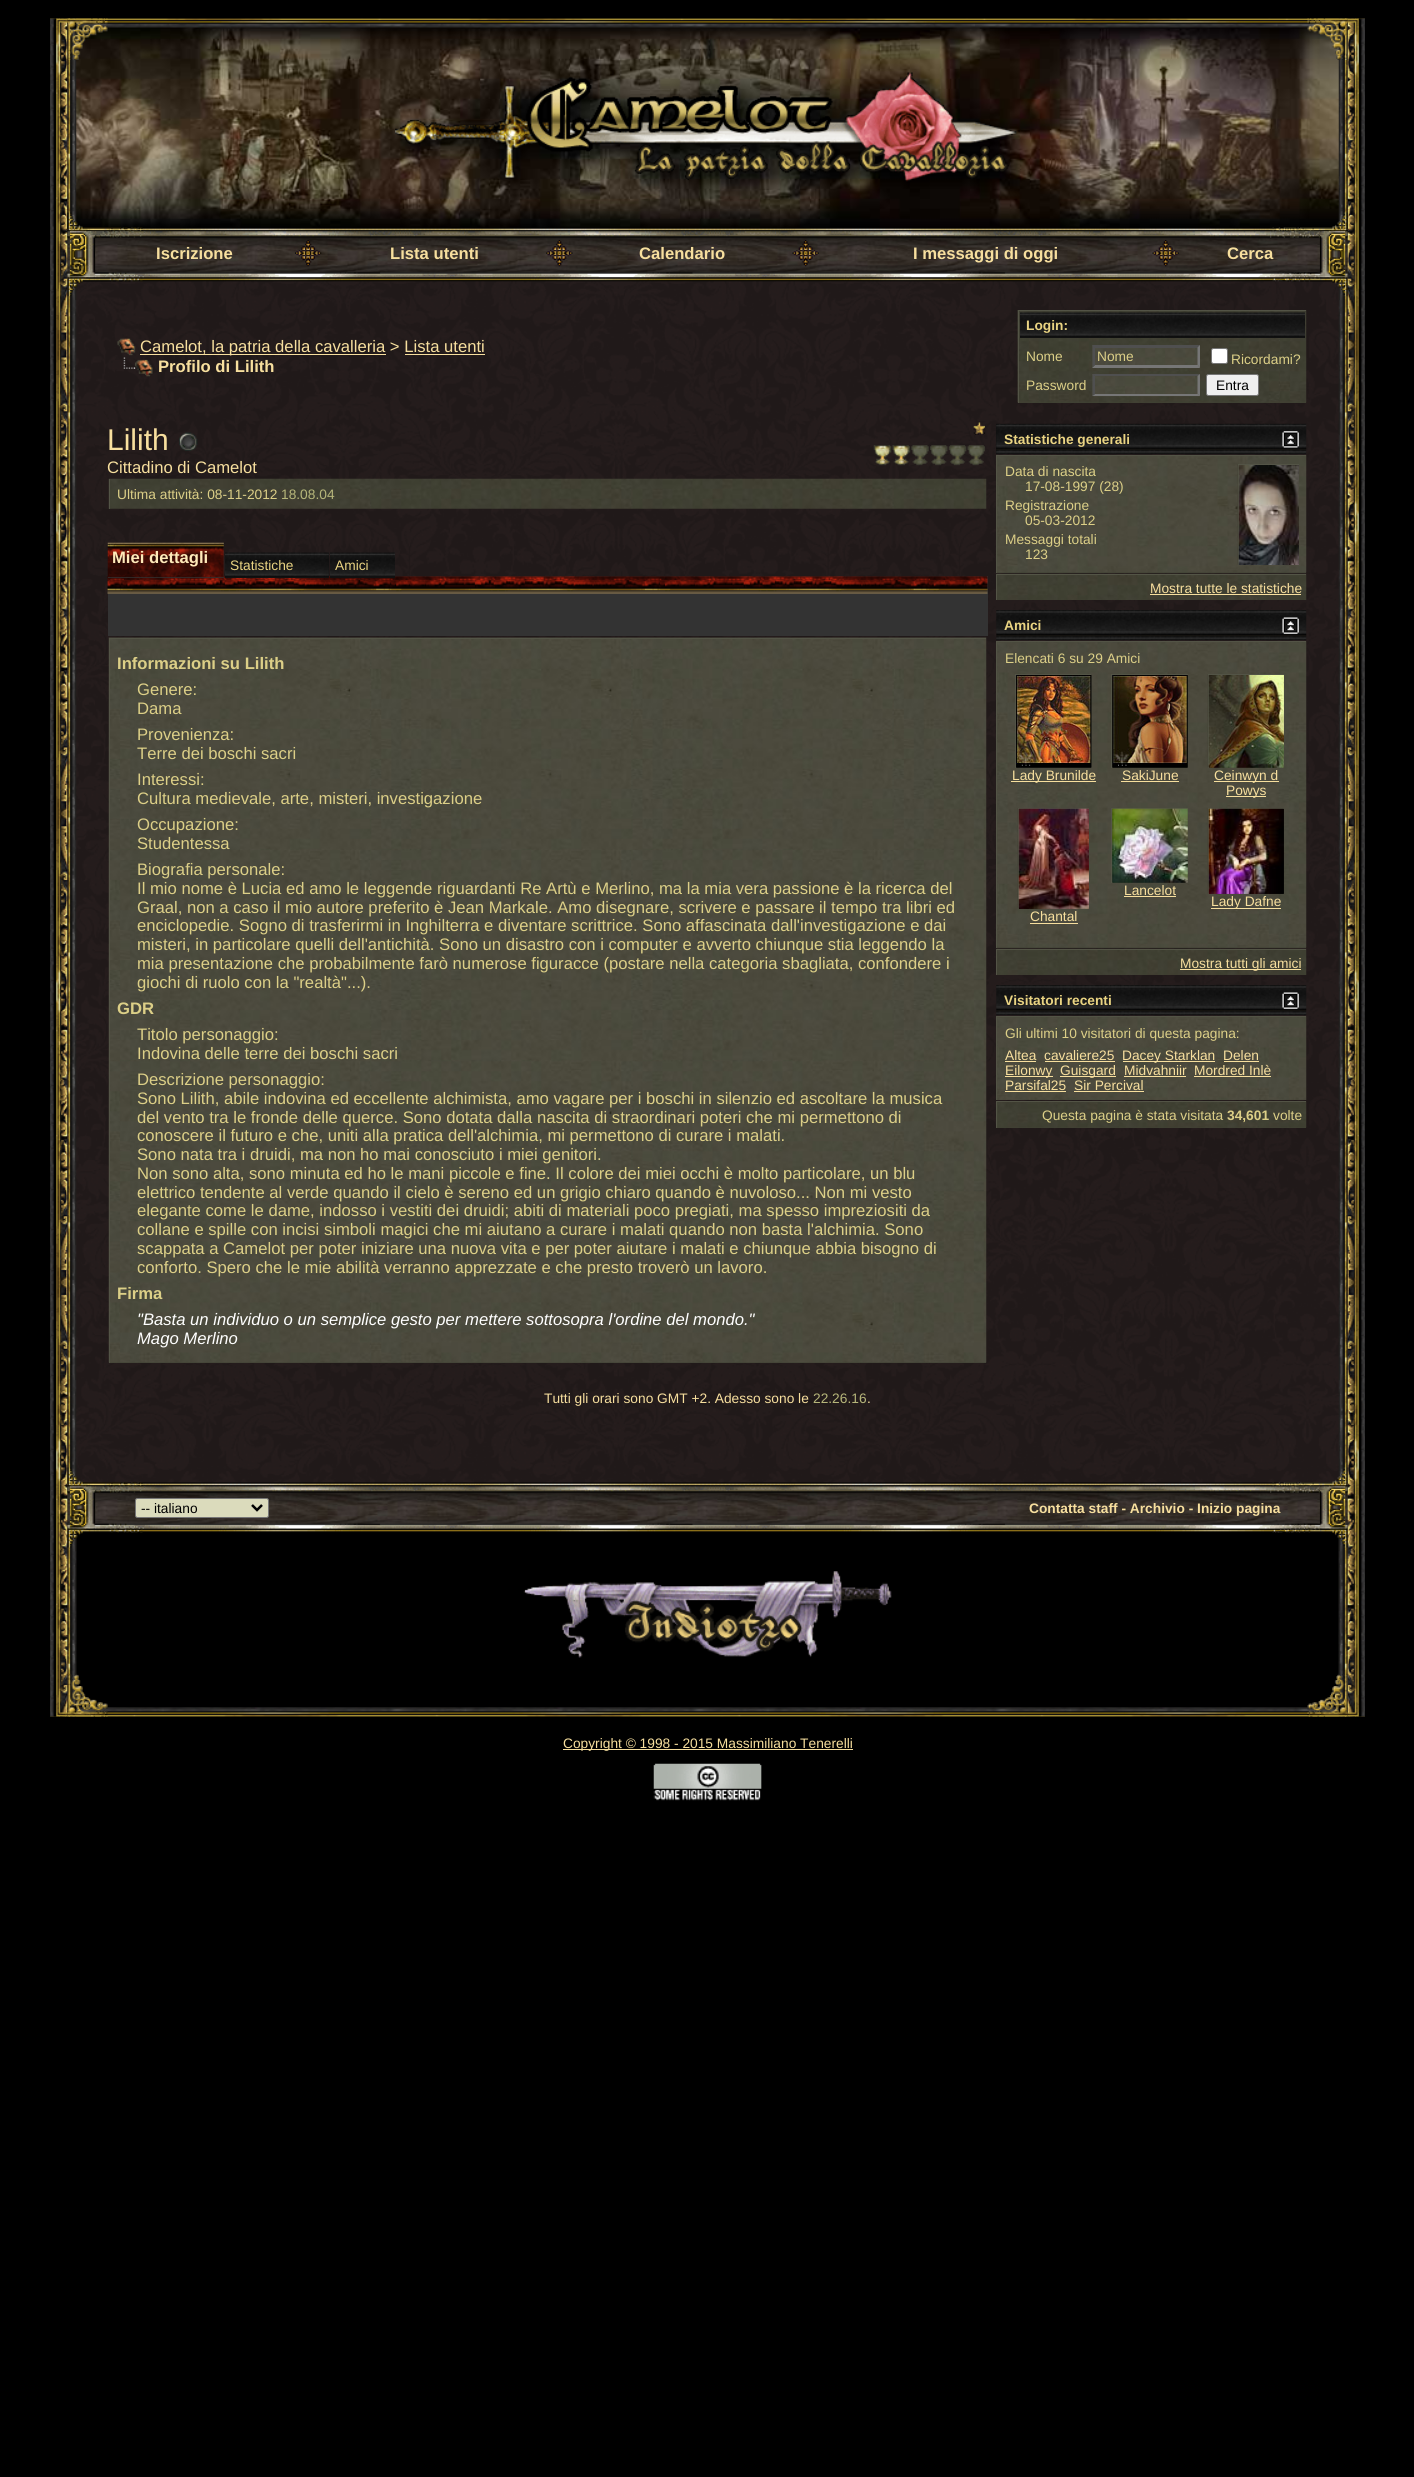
import math
import cairo

surface = cairo.ImageSurface(cairo.Format.RGB24, 1414, 2477)
ctx = cairo.Context(surface)
options = cairo.FontOptions()
options.set_hint_metrics(cairo.HintMetrics.OFF)
options.set_hint_style(cairo.HintStyle.NONE)
ctx.set_font_options(options)
ctx.set_miter_limit(4)


def ink(r, g, b):
    ctx.set_source_rgb(r / 255, g / 255, b / 255)


def write(x, y, s, family, size, color, bold=False, italic=False):
    ctx.select_font_face(family, cairo.FontSlant.ITALIC if italic else cairo.FontSlant.NORMAL, cairo.FontWeight.BOLD if bold else cairo.FontWeight.NORMAL)
    ctx.set_font_size(size)
    ink(*color)
    ctx.move_to(x, y)
    ctx.show_text(s)


def block(x, y, w, h, *color):
    ink(*color)
    ctx.rectangle(x, y, w, h)
    ctx.fill()


def round_path(x, y, w, h, r):
    ctx.new_sub_path()
    for i, (u, v) in enumerate([(x + w - r, y + h - r), (x + r, y + h - r), (x + r, y + r), (x + w - r, y + r)]):
        ctx.arc(u, v, r, i * math.pi / 2, (i + 1) * math.pi / 2)
    ctx.close_path()


def paste(path, x, y, w, h):
    ctx.save()
    ctx.set_source_surface(cairo.ImageSurface.create_from_png(path), x, y)
    ctx.rectangle(x, y, w, h)
    ctx.fill()
    ctx.restore()


s1 = dict(family="Liberation Sans", size=16.65, color=(247, 223, 158), bold=True)
s2 = dict(family="Liberation Sans", size=16.65, color=(247, 223, 158))
s3 = dict(family="Liberation Sans", size=13.75, color=(234, 212, 130), bold=True)
s4 = dict(family="Liberation Sans", size=13.75, color=(220, 207, 135))
s5 = dict(family="Liberation Sans", size=13.75, color=(0, 0, 0))
s6 = dict(family="Liberation Sans", size=30, color=(247, 223, 158))
s7 = dict(family="Liberation Sans", size=13.75, color=(182, 182, 122))
s8 = dict(family="Liberation Sans", size=16.65, color=(255, 233, 185), bold=True)
s9 = dict(family="Liberation Sans", size=13.75, color=(234, 212, 130))
s10 = dict(family="Liberation Sans", size=16.65, color=(220, 207, 135), bold=True)
s11 = dict(family="Liberation Sans", size=16.65, color=(220, 207, 135))
s12 = dict(family="Liberation Sans", size=16.65, color=(255, 255, 255), italic=True)
s13 = dict(family="Liberation Sans", size=13.75, color=(247, 223, 158))
s14 = dict(family="Liberation Sans", size=13.75, color=(220, 207, 135), bold=True)
s15 = dict(family="Liberation Sans", size=13.75, color=(247, 223, 158), bold=True)

ink(0, 0, 0)
ctx.paint()
paste("pic1.png", 50, 18, 1315, 1)
paste("pic2.png", 50, 1707, 1315, 10)
paste("pic3.png", 50, 18, 27, 1699)
paste("pic4.png", 1338, 18, 27, 1699)
paste("pic5.png", 50, 1673, 58, 44)
paste("pic6.png", 1307, 1673, 58, 44)
paste("pic7.png", 50, 18, 58, 5)
paste("pic8.png", 1307, 18, 58, 42)
paste("pic9.png", 67, 18, 1281, 214)
paste("pic10.png", 67, 18, 1281, 10)
paste("pic11.png", 67, 227, 1281, 5)
paste("pic12.png", 67, 18, 10, 214)
paste("pic13.png", 1338, 18, 10, 214)
paste("pic14.png", 67, 212, 76, 20)
paste("pic15.png", 1272, 212, 76, 20)
paste("pic16.png", 67, 18, 41, 42)
paste("pic17.png", 1307, 18, 41, 42)
paste("pic18.png", 395, 72, 622, 110)
paste("pic19.png", 67, 231, 1281, 47)
paste("pic20.png", 67, 231, 1281, 7)
paste("pic21.png", 67, 272, 1281, 6)
paste("pic22.png", 69, 231, 26, 47)
paste("pic23.png", 1320, 231, 26, 47)
paste("pic24.png", 69, 257, 75, 21)
paste("pic25.png", 1281, 257, 65, 21)
paste("pic26.png", 69, 231, 76, 21)
paste("pic27.png", 1270, 231, 76, 21)
write(156, 259, "Iscrizione", **s1)
paste("pic28.png", 295, 240, 27, 27)
write(390, 259, "Lista utenti", **s1)
paste("pic29.png", 546, 240, 27, 27)
write(639, 259, "Calendario", **s1)
paste("pic30.png", 792, 240, 27, 27)
write(913, 259, "I messaggi di oggi", **s1)
paste("pic31.png", 1152, 240, 27, 27)
write(1227, 259, "Cerca", **s1)
paste("pic81.png", 67, 1486, 1281, 43)
paste("pic82.png", 67, 1486, 1281, 7)
paste("pic83.png", 67, 1523, 1281, 6)
paste("pic84.png", 69, 1486, 26, 43)
paste("pic85.png", 1320, 1486, 26, 43)
paste("pic88.png", 69, 1486, 76, 21)
paste("pic89.png", 1270, 1486, 76, 21)
paste("pic32.png", 67, 277, 1281, 1210)
paste("pic33.png", 67, 277, 1281, 5)
paste("pic34.png", 67, 1482, 1281, 5)
paste("pic35.png", 67, 277, 10, 1210)
paste("pic36.png", 1338, 277, 10, 1210)
paste("pic37.png", 67, 1467, 76, 20)
paste("pic38.png", 1272, 1467, 76, 20)
paste("pic39.png", 67, 277, 76, 20)
paste("pic40.png", 1272, 277, 76, 20)
paste("pic41.png", 117, 338, 19, 18)
block(140, 354, 246, 1, 247, 223, 158)
write(140, 352, "Camelot, la patria della cavalleria > Lista utenti", **s2)
block(405, 354, 80, 1, 247, 223, 158)
paste("pic42.png", 123, 357, 30, 20)
write(158, 372, "Profilo di Lilith", **s1)
block(1019, 402, 287, 1, 65, 66, 52)
paste("pic43.png", 1017, 310, 290, 93)
block(1018, 310, 288, 1, 83, 84, 70)
block(1018, 310, 1, 93, 83, 84, 70)
block(1020, 337, 285, 1, 17, 17, 17)
paste("pic44.png", 1020, 312, 285, 25)
write(1026, 330, "Login:", **s3)
write(1026, 361, "Nome", **s4)
paste("pic45.png", 1092, 345, 108, 23)
ink(79, 79, 79)
ctx.new_path()
ctx.move_to(1092, 345)
ctx.line_to(1200, 345)
ctx.line_to(1198, 348)
ctx.line_to(1095, 348)
ctx.close_path()
ctx.fill()
ink(118, 118, 118)
ctx.new_path()
ctx.move_to(1200, 345)
ctx.line_to(1200, 367.5)
ctx.line_to(1197.5, 365)
ctx.line_to(1197.5, 347.5)
ctx.close_path()
ctx.fill()
ctx.new_path()
ctx.move_to(1200, 368)
ctx.line_to(1092, 368)
ctx.line_to(1095, 365)
ctx.line_to(1198, 365)
ctx.close_path()
ctx.fill()
ink(79, 79, 79)
ctx.new_path()
ctx.move_to(1092.5, 367.5)
ctx.line_to(1092.5, 345)
ctx.line_to(1095, 347.5)
ctx.line_to(1095, 365)
ctx.close_path()
ctx.fill()
write(1097, 361, "Nome", **s4)
ink(255, 255, 255)
round_path(1211.5, 348.5, 16, 15, 2)
ctx.fill_preserve()
ink(118, 118, 118)
ctx.set_line_width(1)
ctx.stroke()
write(1231, 364, "Ricordami?", **s4)
write(1026, 390, "Password", **s4)
paste("pic46.png", 1092, 374, 108, 23)
ink(79, 79, 79)
ctx.new_path()
ctx.move_to(1092, 374)
ctx.line_to(1200, 374)
ctx.line_to(1198, 376)
ctx.line_to(1095, 376)
ctx.close_path()
ctx.fill()
ink(118, 118, 118)
ctx.new_path()
ctx.move_to(1200, 374)
ctx.line_to(1200, 396)
ctx.line_to(1197.5, 394)
ctx.line_to(1197.5, 376)
ctx.close_path()
ctx.fill()
ctx.new_path()
ctx.move_to(1200, 396)
ctx.line_to(1092, 396)
ctx.line_to(1095, 394)
ctx.line_to(1198, 394)
ctx.close_path()
ctx.fill()
ink(79, 79, 79)
ctx.new_path()
ctx.move_to(1092.5, 396)
ctx.line_to(1092.5, 374)
ctx.line_to(1095, 376)
ctx.line_to(1095, 394)
ctx.close_path()
ctx.fill()
ink(239, 239, 239)
round_path(1206.5, 374.5, 52, 21, 2)
ctx.fill_preserve()
ink(118, 118, 118)
ctx.stroke()
write(1216, 390, "Entra", **s5)
write(107, 450, "Lilith", **s6)
paste("pic47.png", 179, 432, 19, 19)
paste("pic48.png", 973, 422, 12, 13)
paste("pic49.png", 873, 445, 112, 21)
write(107, 473, "Cittadino di Camelot", **s2)
paste("pic50.png", 108, 478, 879, 31)
block(109, 479, 1, 30, 83, 84, 70)
write(117, 499, "Ultima attività: 08-11-2012", **s4)
write(281, 499, "18.08.04", **s7)
block(108, 576, 880, 60, 51, 51, 51)
paste("pic54.png", 107, 576, 881, 18)
block(108, 543, 116, 35, 51, 51, 51)
paste("pic51.png", 107, 542, 117, 36)
write(112, 563, "Miei dettagli", **s8)
block(225, 553, 104, 25, 17, 17, 17)
paste("pic52.png", 225, 552, 104, 25)
write(230, 570, "Statistiche", **s9)
block(330, 576, 65, 2, 17, 17, 17)
paste("pic53.png", 330, 552, 65, 24)
write(335, 570, "Amici", **s9)
block(110, 1362, 876, 1, 65, 66, 52)
paste("pic55.png", 108, 637, 879, 726)
block(109, 638, 877, 1, 83, 84, 70)
block(109, 638, 1, 725, 83, 84, 70)
write(117, 669, "Informazioni su Lilith", **s10)
write(137, 695, "Genere:", **s11)
write(137, 714, "Dama", **s11)
write(137, 740, "Provenienza:", **s11)
write(137, 759, "Terre dei boschi sacri", **s11)
write(137, 785, "Interessi:", **s11)
write(137, 804, "Cultura medievale, arte, misteri, investigazione", **s11)
write(137, 830, "Occupazione:", **s11)
write(137, 849, "Studentessa", **s11)
write(137, 875, "Biografia personale:", **s11)
write(137, 894, "Il mio nome è Lucia ed amo le leggende riguardanti Re Artù e Merlino, ma la mia vera passione è la ricerca del", **s11)
write(137, 913, "Graal, non a caso il mio autore preferito è Jean Markale. Amo disegnare, scrivere e passare il tempo tra libri ed", **s11)
write(137, 931, "enciclopedie. Sogno di trasferirmi in Inghilterra e diventare scrittrice. Sono affascinata dall'investigazione e dai", **s11)
write(137, 950, "misteri, in particolare quelli dell'antichità. Sono un disastro con i computer e avverto chiunque stia leggendo la", **s11)
write(137, 969, "mia presentazione che probabilmente farò numerose figuracce (postare nella categoria sbagliata, confondere i", **s11)
write(137, 988, "giochi di ruolo con la \"realtà\"...).", **s11)
write(117, 1014, "GDR", **s10)
write(137, 1040, "Titolo personaggio:", **s11)
write(137, 1059, "Indovina delle terre dei boschi sacri", **s11)
write(137, 1085, "Descrizione personaggio:", **s11)
write(137, 1104, "Sono Lilith, abile indovina ed eccellente alchimista, amo vagare per i boschi in silenzio ed ascoltare la musica", **s11)
write(137, 1123, "del vento tra le fronde delle querce. Sono dotata dalla nascita di straordinari poteri che mi permettono di", **s11)
write(137, 1141, "conoscere il futuro e che, uniti alla pratica dell'alchimia, mi permettono di curare i malati.", **s11)
write(137, 1160, "Sono nata tra i druidi, ma non ho mai conosciuto i miei genitori.", **s11)
write(137, 1179, "Non sono alta, sono minuta ed ho le mani piccole e fine. Il colore dei miei occhi è molto particolare, un blu", **s11)
write(137, 1198, "elettrico tendente al verde quando il cielo è sereno ed un grigio chiaro quando è nuvoloso... Non mi vesto", **s11)
write(137, 1216, "elegante come le dame, indosso i vestiti dei druidi; abiti di materiali poco pregiati, ma spesso impreziositi da", **s11)
write(137, 1235, "collane e spille con incisi simboli magici che mi aiutano a curare i malati quando non basta l'alchimia. Sono", **s11)
write(137, 1254, "scappata a Camelot per poter iniziare una nuova vita e per poter aiutare i malati e chiunque abbia bisogno di", **s11)
write(137, 1273, "conforto. Spero che le mie abilità verranno apprezzate e che presto troverò un lavoro.", **s11)
write(117, 1299, "Firma", **s10)
write(137, 1325, "\"Basta un individuo o un semplice gesto per mettere sottosopra l'ordine del mondo.\"", **s12)
write(137, 1344, "Mago Merlino", **s12)
block(996, 424, 310, 30, 17, 17, 17)
paste("pic56.png", 996, 423, 311, 31)
write(1004, 444, "Statistiche generali", **s3)
paste("pic57.png", 1282, 431, 17, 17)
block(997, 572, 309, 1, 65, 66, 52)
paste("pic58.png", 997, 455, 310, 118)
block(996, 455, 310, 1, 83, 84, 70)
block(996, 455, 1, 118, 83, 84, 70)
write(1005, 476, "Data di nascita", **s4)
write(1025, 491, "17-08-1997 (28)", **s4)
write(1005, 510, "Registrazione", **s4)
write(1025, 525, "05-03-2012", **s4)
write(1005, 544, "Messaggi totali", **s4)
write(1025, 559, "123", **s4)
paste("pic59.png", 1237, 464, 62, 101)
block(1238, 464, 61, 1, 83, 84, 70)
block(1238, 464, 1, 101, 83, 84, 70)
paste("pic60.png", 1238, 465, 61, 100)
paste("pic61.png", 996, 573, 311, 27)
block(996, 574, 310, 1, 83, 84, 70)
block(996, 574, 1, 26, 83, 84, 70)
write(1150, 593, "Mostra tutte le statistiche", **s13)
block(1150, 594, 151, 1, 247, 223, 158)
paste("pic62.png", 996, 610, 311, 30)
write(1004, 630, "Amici", **s3)
paste("pic63.png", 1282, 617, 17, 17)
block(997, 947, 309, 1, 65, 66, 52)
paste("pic64.png", 997, 641, 310, 307)
block(996, 641, 310, 1, 83, 84, 70)
block(996, 641, 1, 307, 83, 84, 70)
write(1005, 663, "Elencati 6 su 29 Amici", **s4)
paste("pic65.png", 1016, 674, 76, 94)
block(1015, 674, 76, 1, 83, 84, 70)
block(1015, 674, 1, 94, 83, 84, 70)
paste("pic66.png", 1016, 675, 76, 93)
block(1011, 781, 85, 1, 247, 223, 158)
write(1012, 780, "Lady Brunilde", **s13)
block(1111, 674, 77, 1, 83, 84, 70)
block(1111, 674, 1, 94, 83, 84, 70)
block(1113, 675, 75, 93, 65, 66, 52)
paste("pic67.png", 1112, 675, 76, 93)
paste("pic68.png", 1112, 675, 76, 93)
write(1122, 780, "SakiJune", **s13)
block(1121, 781, 58, 1, 247, 223, 158)
block(1209, 675, 75, 93, 65, 66, 52)
paste("pic69.png", 1207, 674, 77, 94)
block(1208, 674, 76, 1, 83, 84, 70)
block(1208, 674, 1, 94, 83, 84, 70)
paste("pic70.png", 1208, 675, 76, 93)
block(1214, 781, 65, 1, 247, 223, 158)
write(1214, 780, "Ceinwyn d", **s13)
block(1226, 796, 40, 1, 247, 223, 158)
write(1226, 795, "Powys", **s13)
block(1111, 808, 77, 1, 83, 84, 70)
block(1111, 808, 1, 75, 83, 84, 70)
block(1113, 809, 75, 74, 65, 66, 52)
paste("pic72.png", 1112, 809, 76, 74)
paste("pic71.png", 1112, 808, 76, 75)
write(1124, 895, "Lancelot", **s13)
block(1124, 896, 52, 1, 247, 223, 158)
paste("pic73.png", 1207, 808, 77, 86)
block(1208, 808, 76, 1, 83, 84, 70)
block(1208, 808, 1, 86, 83, 84, 70)
paste("pic74.png", 1208, 808, 76, 86)
block(1211, 908, 70, 1, 247, 223, 158)
write(1211, 906, "Lady Dafne", **s13)
paste("pic75.png", 1017, 808, 72, 101)
block(1018, 808, 71, 1, 83, 84, 70)
block(1018, 808, 1, 101, 83, 84, 70)
paste("pic76.png", 1018, 808, 71, 101)
write(1030, 921, "Chantal", **s13)
block(1030, 923, 48, 1, 247, 223, 158)
paste("pic77.png", 996, 948, 311, 27)
block(996, 949, 310, 1, 83, 84, 70)
block(996, 949, 1, 26, 83, 84, 70)
block(1180, 969, 121, 1, 247, 223, 158)
write(1180, 968, "Mostra tutti gli amici", **s13)
paste("pic78.png", 996, 985, 311, 30)
write(1004, 1005, "Visitatori recenti", **s3)
paste("pic63.png", 1282, 992, 17, 17)
paste("pic79.png", 997, 1016, 310, 84)
block(996, 1016, 310, 1, 83, 84, 70)
block(996, 1016, 1, 84, 83, 84, 70)
write(1005, 1038, "Gli ultimi 10 visitatori di questa pagina:", **s4)
write(1005, 1060, "Altea", **s13)
block(1005, 1061, 31, 1, 247, 223, 158)
write(1044, 1060, "cavaliere25", **s13)
block(1045, 1061, 70, 1, 247, 223, 158)
block(1123, 1061, 92, 1, 247, 223, 158)
write(1122, 1060, "Dacey Starklan", **s13)
write(1223, 1060, "Delen", **s13)
block(1224, 1061, 35, 1, 247, 223, 158)
block(1005, 1076, 48, 1, 247, 223, 158)
write(1005, 1075, "Eilonwy", **s13)
block(1060, 1076, 56, 1, 247, 223, 158)
write(1060, 1075, "Guisgard", **s13)
write(1124, 1075, "Midvahniir", **s13)
block(1124, 1076, 62, 1, 247, 223, 158)
write(1194, 1075, "Mordred Inlè", **s13)
block(1194, 1076, 77, 1, 247, 223, 158)
write(1005, 1090, "Parsifal25", **s13)
block(1005, 1091, 61, 1, 247, 223, 158)
write(1074, 1090, "Sir Percival", **s13)
block(1074, 1091, 70, 1, 247, 223, 158)
block(997, 1102, 309, 26, 65, 66, 52)
paste("pic80.png", 998, 1101, 309, 27)
block(996, 1101, 310, 1, 83, 84, 70)
block(996, 1101, 1, 27, 83, 84, 70)
write(1042, 1120, "Questa pagina è stata visitata", **s4)
write(1227, 1120, "34,601", **s14)
write(1273, 1120, "volte", **s4)
write(544, 1403, "Tutti gli orari sono GMT +2. Adesso sono le", **s13)
write(813, 1403, "22.26.16", **s7)
write(867, 1403, ".", **s13)
paste("pic86.png", 69, 1508, 75, 21)
paste("pic87.png", 1281, 1508, 65, 21)
ink(219, 219, 188)
round_path(135.5, 1498.5, 133, 19, 2)
ctx.fill_preserve()
ink(118, 118, 118)
ctx.stroke()
ctx.new_path()
ctx.move_to(252, 1505)
ctx.line_to(257, 1510)
ctx.line_to(262, 1505)
ink(0, 0, 0)
ctx.set_line_width(2.5)
ctx.stroke()
write(141, 1513, "-- italiano", **s5)
write(1029, 1513, "Contatta staff - Archivio - Inizio pagina", **s15)
paste("pic90.png", 67, 1528, 1281, 5)
paste("pic91.png", 67, 1707, 1281, 10)
paste("pic92.png", 67, 1528, 10, 189)
paste("pic93.png", 1338, 1528, 10, 189)
paste("pic94.png", 67, 1673, 41, 44)
paste("pic95.png", 1307, 1674, 41, 43)
paste("pic96.png", 67, 1528, 76, 20)
paste("pic97.png", 1272, 1528, 76, 20)
paste("pic98.png", 523, 1571, 369, 87)
block(563, 1749, 290, 1, 247, 223, 158)
write(563, 1748, "Copyright © 1998 - 2015 Massimiliano Tenerelli", **s13)
paste("pic99.png", 653, 1763, 109, 38)
surface.write_to_png("screenshot.png")
